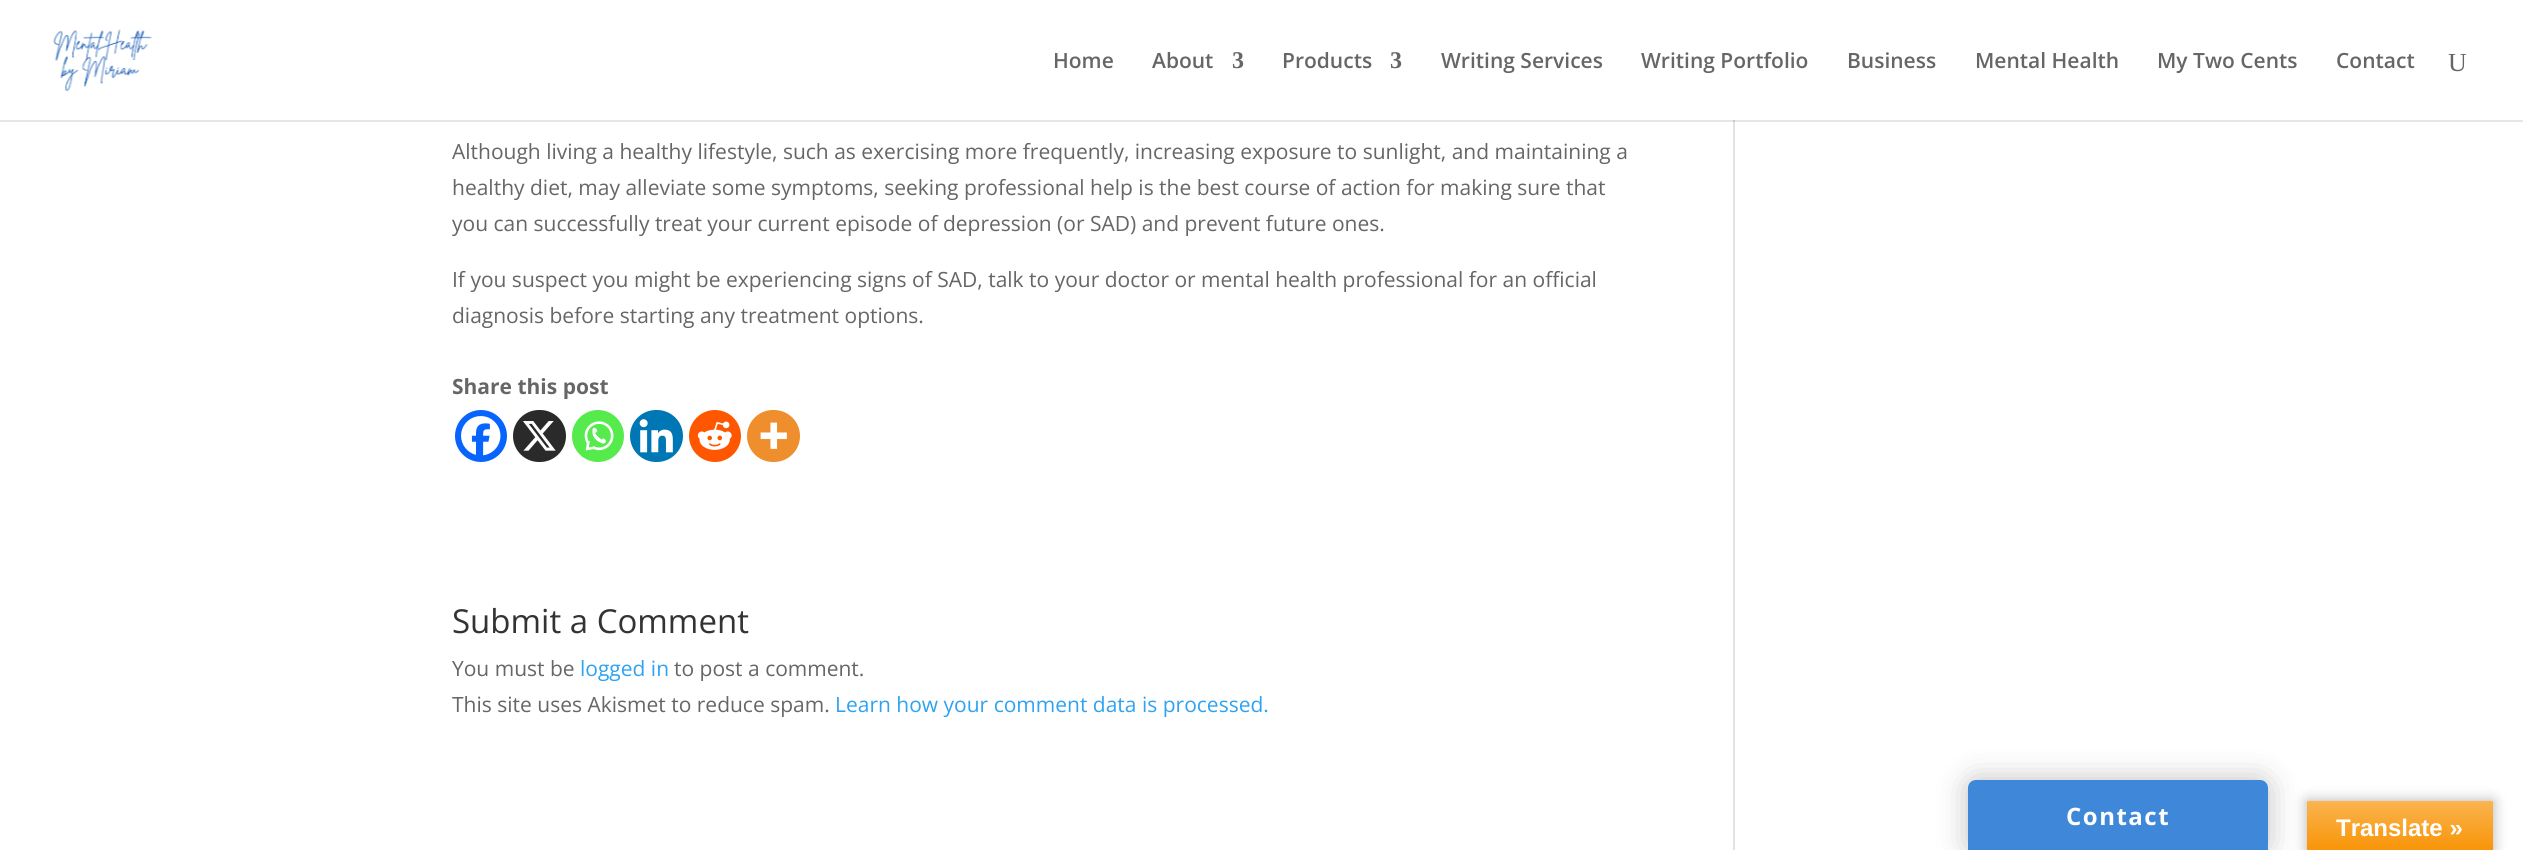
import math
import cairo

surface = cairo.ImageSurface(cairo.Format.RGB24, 2523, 850)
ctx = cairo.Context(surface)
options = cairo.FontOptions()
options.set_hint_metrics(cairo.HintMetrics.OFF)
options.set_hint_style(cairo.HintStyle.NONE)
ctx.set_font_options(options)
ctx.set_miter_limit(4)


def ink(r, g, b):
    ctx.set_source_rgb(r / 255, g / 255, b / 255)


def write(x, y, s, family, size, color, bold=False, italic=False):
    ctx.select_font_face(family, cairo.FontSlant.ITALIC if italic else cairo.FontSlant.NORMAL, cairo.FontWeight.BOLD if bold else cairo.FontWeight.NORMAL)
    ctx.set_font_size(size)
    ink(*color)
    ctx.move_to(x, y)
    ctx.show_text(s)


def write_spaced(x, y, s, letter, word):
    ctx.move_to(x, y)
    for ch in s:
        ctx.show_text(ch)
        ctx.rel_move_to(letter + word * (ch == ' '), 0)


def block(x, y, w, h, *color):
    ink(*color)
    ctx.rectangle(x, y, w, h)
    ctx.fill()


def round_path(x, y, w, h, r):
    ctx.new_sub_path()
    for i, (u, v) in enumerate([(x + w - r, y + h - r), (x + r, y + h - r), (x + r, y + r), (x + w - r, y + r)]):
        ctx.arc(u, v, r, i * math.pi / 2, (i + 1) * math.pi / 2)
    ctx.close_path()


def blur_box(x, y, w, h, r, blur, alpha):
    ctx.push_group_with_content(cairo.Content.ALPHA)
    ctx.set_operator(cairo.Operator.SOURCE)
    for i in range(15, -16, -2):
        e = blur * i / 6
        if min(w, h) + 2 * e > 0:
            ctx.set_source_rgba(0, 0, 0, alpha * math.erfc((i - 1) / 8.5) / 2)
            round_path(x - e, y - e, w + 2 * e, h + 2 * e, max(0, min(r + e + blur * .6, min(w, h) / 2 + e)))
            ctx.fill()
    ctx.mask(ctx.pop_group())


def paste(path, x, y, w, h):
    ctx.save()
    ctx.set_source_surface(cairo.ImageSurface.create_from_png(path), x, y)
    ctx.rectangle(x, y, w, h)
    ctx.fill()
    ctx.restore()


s1 = dict(family="Open Sans SemiBold", size=21, color=(102, 102, 102))
s2 = dict(family="Liberation Serif", size=24, color=(102, 102, 102), bold=True)
s3 = dict(family="Liberation Serif", size=26, color=(102, 102, 102))
s4 = dict(family="Open Sans", size=21, color=(102, 102, 102))
s5 = dict(family="Open Sans", size=21, color=(102, 102, 102), bold=True)
s6 = dict(family="Open Sans", size=33, color=(51, 51, 51))
s7 = dict(family="Open Sans", size=21, color=(46, 163, 242))
s8 = dict(family="Liberation Sans", size=24, color=(255, 255, 255), bold=True)

ink(255, 255, 255)
ctx.paint()
block(0, 120, 2523, 2, 230, 230, 230)
paste("pic1.png", 53, 29, 99, 63)
write(1053, 68, "Home", **s1)
write(1152, 68, "About", **s1)
write(1232, 68, "3", **s2)
write(1282, 68, "Products", **s1)
write(1390, 68, "3", **s2)
write(1441, 68, "Writing Services", **s1)
write(1641, 68, "Writing Portfolio", **s1)
write(1847, 68, "Business", **s1)
write(1975, 68, "Mental Health", **s1)
write(2157, 68, "My Two Cents", **s1)
write(2336, 68, "Contact", **s1)
write(2448, 71, "U", **s3)
write(452, 159, "Although living a healthy lifestyle, such as exercising more frequently, increasing exposure to sunlight, and maintaining a", **s4)
write(452, 195, "healthy diet, may alleviate some symptoms, seeking professional help is the best course of action for making sure that", **s4)
write(452, 231, "you can successfully treat your current episode of depression (or SAD) and prevent future ones.", **s4)
write(452, 287, "If you suspect you might be experiencing signs of SAD, talk to your doctor or mental health professional for an official", **s4)
write(452, 323, "diagnosis before starting any treatment options.", **s4)
write(452, 394, "Share this post", **s5)
ink(7, 101, 254)
ctx.new_path()
ctx.arc(481, 436, 26, 0, 2 * math.pi)
ctx.fill()
paste("pic2.png", 461, 416, 40, 40)
ink(42, 42, 42)
round_path(513, 410, 53, 52, 26)
ctx.fill()
paste("pic3.png", 523, 421, 33, 30)
ink(85, 235, 76)
ctx.arc(598, 436, 26, 0, 2 * math.pi)
ctx.fill()
paste("pic4.png", 584, 421, 30, 30)
ink(0, 119, 181)
round_path(630, 410, 53, 52, 26)
ctx.fill()
paste("pic5.png", 639, 419, 34, 34)
ink(255, 87, 0)
ctx.arc(715, 436, 26, 0, 2 * math.pi)
ctx.fill()
paste("pic6.png", 697, 421, 35, 29)
ink(238, 142, 45)
round_path(747, 410, 53, 52, 26)
ctx.fill()
paste("pic7.png", 760, 422, 27, 27)
write(452, 633, "Submit a Comment", **s6)
write(452, 676, "You must be", **s4)
write(580, 676, "logged in", **s7)
write(674, 676, "to post a comment.", **s4)
write(452, 712, "This site uses Akismet to reduce spam.", **s4)
write(835, 712, "Learn how your comment data is processed.", **s7)
block(1733, 122, 2, 728, 226, 226, 226)
block(1733, 120, 2, 2, 203, 203, 203)
ink(0, 0, 0)
blur_box(2307, 801, 186, 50, 0, 7, 0.3)
gradient = cairo.LinearGradient(2400, 801, 2400, 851)
gradient.add_color_stop_rgba(0, 0.984, 0.706, 0.314, 1)
gradient.add_color_stop_rgba(1, 0.973, 0.58, 0.024, 1)
ctx.set_source(gradient)
ctx.rectangle(2307, 801, 186, 49)
ctx.fill()
ink(0, 0, 0)
blur_box(1968, 780, 300, 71, 8, 15, 0.25)
ink(62, 135, 217)
ctx.new_path()
ctx.move_to(1976, 780)
ctx.line_to(2260, 780)
ctx.curve_to(2264.5, 780, 2268, 783.5, 2268, 788)
ctx.line_to(2268, 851)
ctx.line_to(1968, 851)
ctx.line_to(1968, 788)
ctx.curve_to(1968, 783.5, 1971.5, 780, 1976, 780)
ctx.close_path()
ctx.fill()
ctx.select_font_face("Open Sans", cairo.FontSlant.NORMAL, cairo.FontWeight.BOLD)
ctx.set_font_size(24)
ink(255, 255, 255)
write_spaced(2066, 825, "Contact", 1.5, 0)
write(2336, 836, "Translate »", **s8)
surface.write_to_png("screenshot.png")
